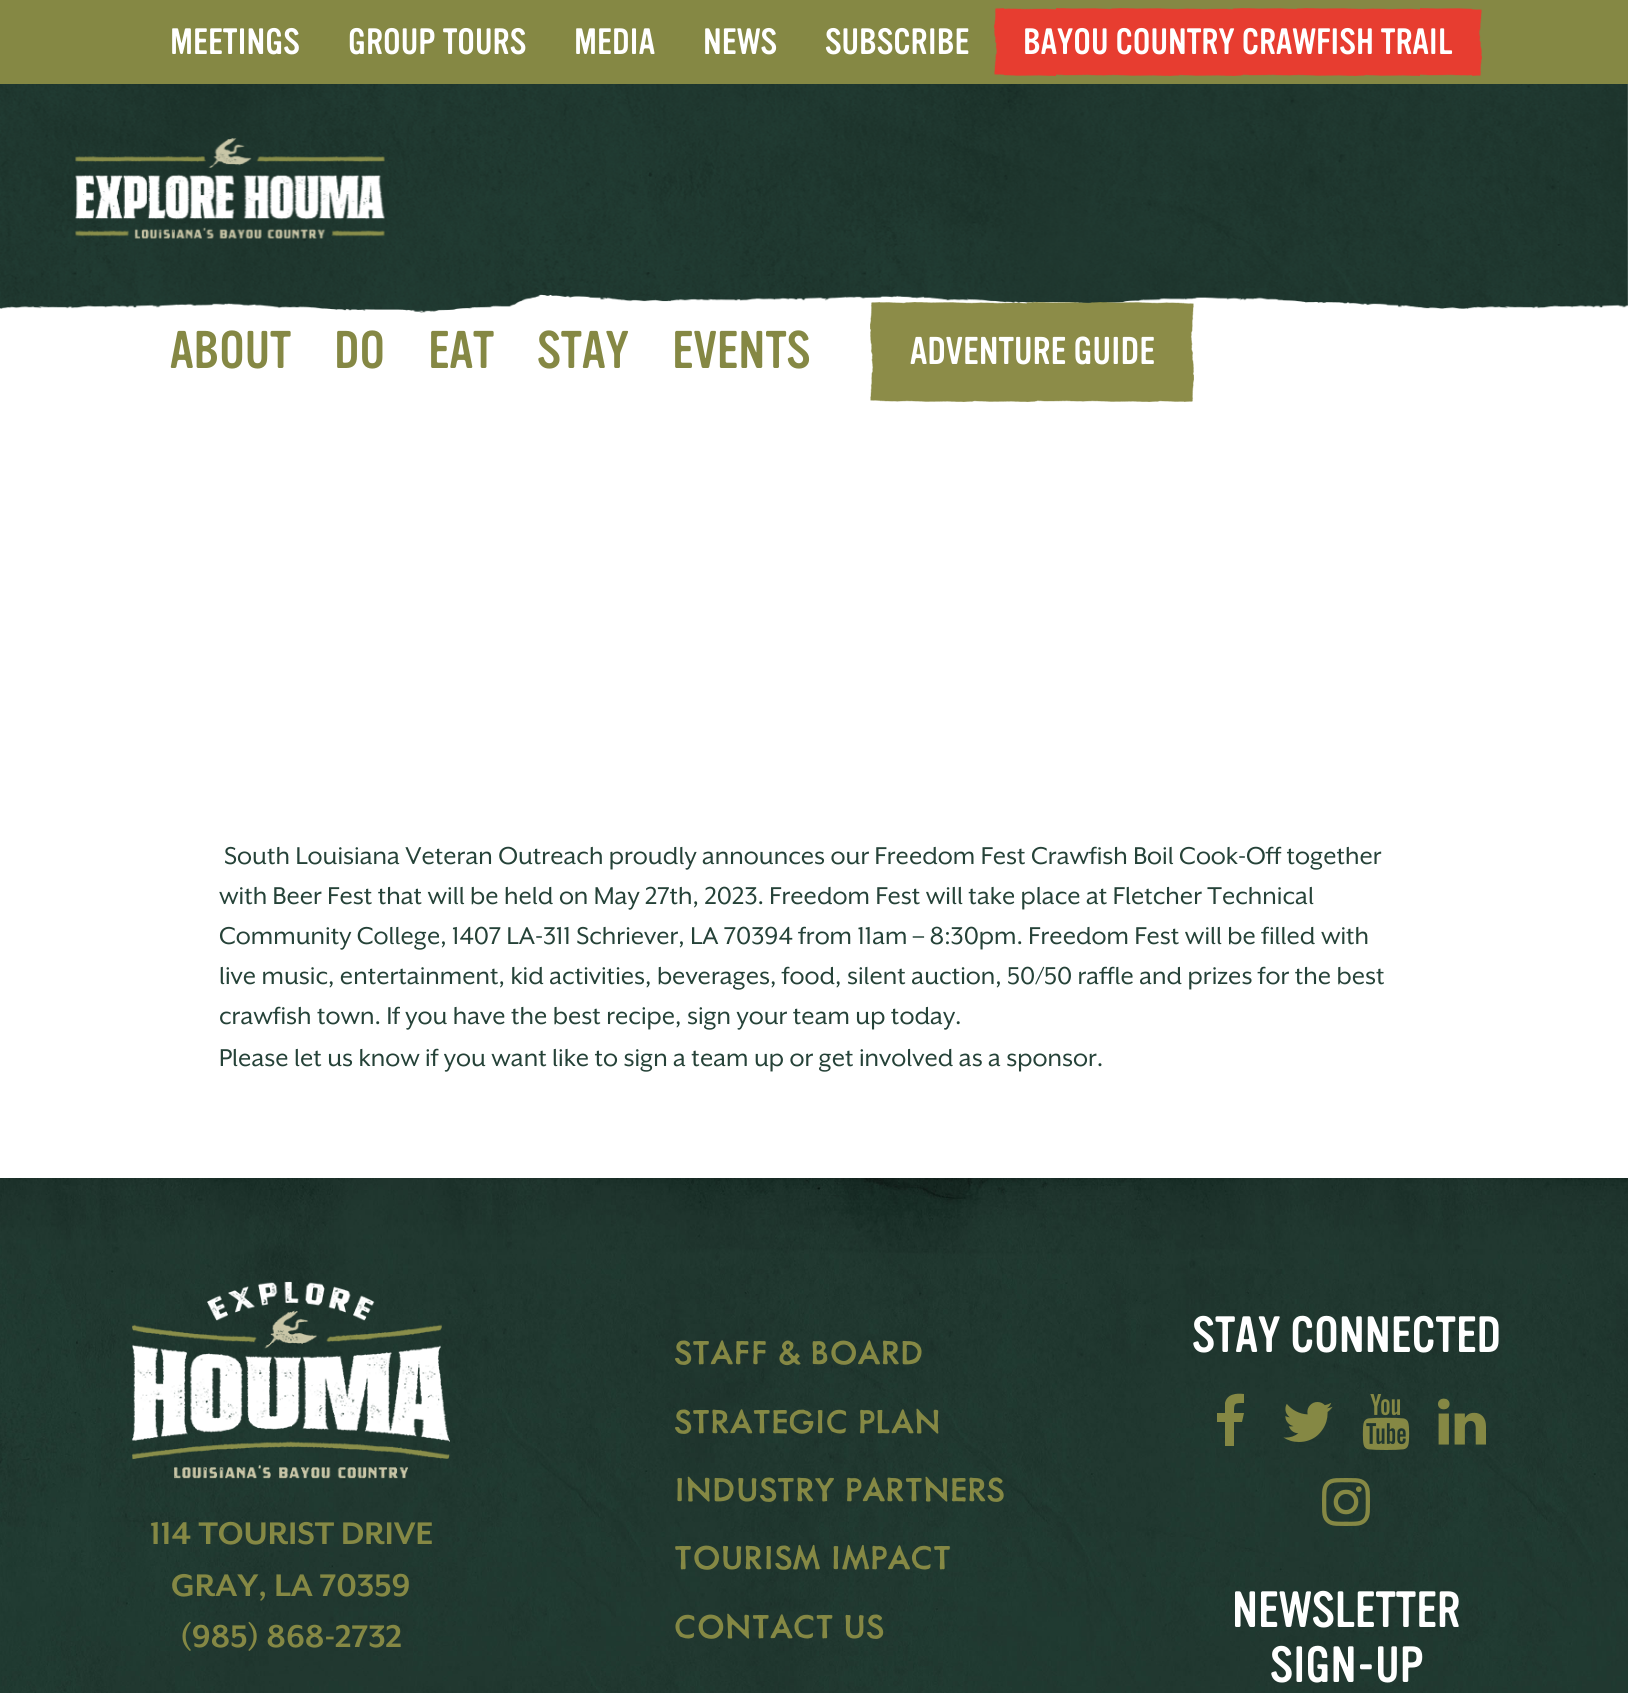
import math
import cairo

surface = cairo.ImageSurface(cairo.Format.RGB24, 1628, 1693)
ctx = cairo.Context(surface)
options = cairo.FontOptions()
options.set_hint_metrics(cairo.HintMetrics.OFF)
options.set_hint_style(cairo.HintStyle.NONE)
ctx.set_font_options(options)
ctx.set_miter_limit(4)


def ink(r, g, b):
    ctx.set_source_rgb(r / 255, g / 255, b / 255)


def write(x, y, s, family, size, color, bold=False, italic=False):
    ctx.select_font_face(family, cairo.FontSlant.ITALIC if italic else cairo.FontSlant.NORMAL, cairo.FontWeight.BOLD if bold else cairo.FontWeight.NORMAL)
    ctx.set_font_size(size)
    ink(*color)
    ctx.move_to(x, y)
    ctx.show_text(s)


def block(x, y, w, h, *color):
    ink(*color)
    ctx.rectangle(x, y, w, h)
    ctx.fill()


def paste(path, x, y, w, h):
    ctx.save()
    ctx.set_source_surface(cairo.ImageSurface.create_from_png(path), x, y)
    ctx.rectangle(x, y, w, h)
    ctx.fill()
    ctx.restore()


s1 = dict(family="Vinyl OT", size=36, color=(255, 255, 255))
s2 = dict(family="Vinyl OT", size=52, color=(133, 136, 68))
s3 = dict(family="Vinyl OT", size=38, color=(255, 255, 255))
s4 = dict(family="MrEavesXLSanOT", size=28, color=(37, 66, 56))
s5 = dict(family="MrEavesXLSanOT", size=36, color=(133, 136, 68), bold=True)
s6 = dict(family="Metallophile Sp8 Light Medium", size=38, color=(133, 136, 68))
s7 = dict(family="Vinyl OT", size=50, color=(255, 255, 255))

ink(255, 255, 255)
ctx.paint()
paste("pic1.png", 0, 84, 1628, 229)
block(0, 0, 1628, 84, 133, 136, 68)
write(170, 54, "MEETINGS", **s1)
write(348, 54, "GROUP TOURS", **s1)
write(574, 54, "MEDIA", **s1)
write(703, 54, "NEWS", **s1)
write(825, 54, "SUBSCRIBE", **s1)
paste("pic2.png", 994, 8, 488, 68)
write(1023, 54, "BAYOU COUNTRY CRAWFISH TRAIL", **s1)
paste("pic3.png", 75, 138, 310, 101)
write(170, 368, "ABOUT", **s2)
write(334, 368, "DO", **s2)
write(428, 368, "EAT", **s2)
write(537, 368, "STAY", **s2)
write(672, 368, "EVENTS", **s2)
paste("pic4.png", 870, 302, 324, 100)
write(910, 364, "ADVENTURE GUIDE", **s3)
write(224, 864, "South Louisiana Veteran Outreach proudly announces our Freedom Fest Crawfish Boil Cook-Off together", **s4)
write(219, 904, "with Beer Fest that will be held on May 27th, 2023. Freedom Fest will take place at Fletcher Technical", **s4)
write(219, 944, "Community College, 1407 LA-311 Schriever, LA 70394 from 11am – 8:30pm. Freedom Fest will be filled with", **s4)
write(219, 984, "live music, entertainment, kid activities, beverages, food, silent auction, 50/50 raffle and prizes for the best", **s4)
write(219, 1024, "crawfish town. If you have the best recipe, sign your team up today.", **s4)
write(219, 1066, "Please let us know if you want like to sign a team up or get involved as a sponsor.", **s4)
paste("pic5.png", 0, 1178, 1628, 515)
paste("pic6.png", 132, 1281, 318, 198)
write(150, 1544, "114 TOURIST DRIVE", **s5)
write(171, 1596, "GRAY, LA 70359", **s5)
write(180, 1647, "(985) 868-2732", **s5)
write(674, 1364, "STAFF & BOARD", **s6)
write(674, 1433, "STRATEGIC PLAN", **s6)
write(674, 1501, "INDUSTRY PARTNERS", **s6)
write(674, 1569, "TOURISM IMPACT", **s6)
write(674, 1638, "CONTACT US", **s6)
write(1192, 1352, "STAY CONNECTED", **s7)
ink(133, 136, 68)
ctx.new_path()
ctx.move_to(1244, 1394)
ctx.line_to(1244, 1403)
ctx.curve_to(1234, 1403, 1234, 1403, 1234, 1413)
ctx.line_to(1244, 1413)
ctx.line_to(1242, 1422)
ctx.line_to(1234, 1422)
ctx.line_to(1234, 1446)
ctx.line_to(1225, 1446)
ctx.line_to(1225, 1422)
ctx.line_to(1217, 1422)
ctx.line_to(1217, 1413)
ctx.line_to(1225, 1413)
ctx.line_to(1225, 1403)
ctx.curve_to(1227, 1394, 1236, 1393, 1244, 1394)
ctx.close_path()
ctx.fill()
paste("pic7.png", 1283, 1402, 50, 40)
paste("pic8.png", 1362, 1394, 48, 56)
paste("pic9.png", 1438, 1398, 48, 47)
paste("pic10.png", 1322, 1478, 48, 48)
write(1232, 1627, "NEWSLETTER", **s7)
write(1270, 1682, "SIGN-UP", **s7)
surface.write_to_png("screenshot.png")
